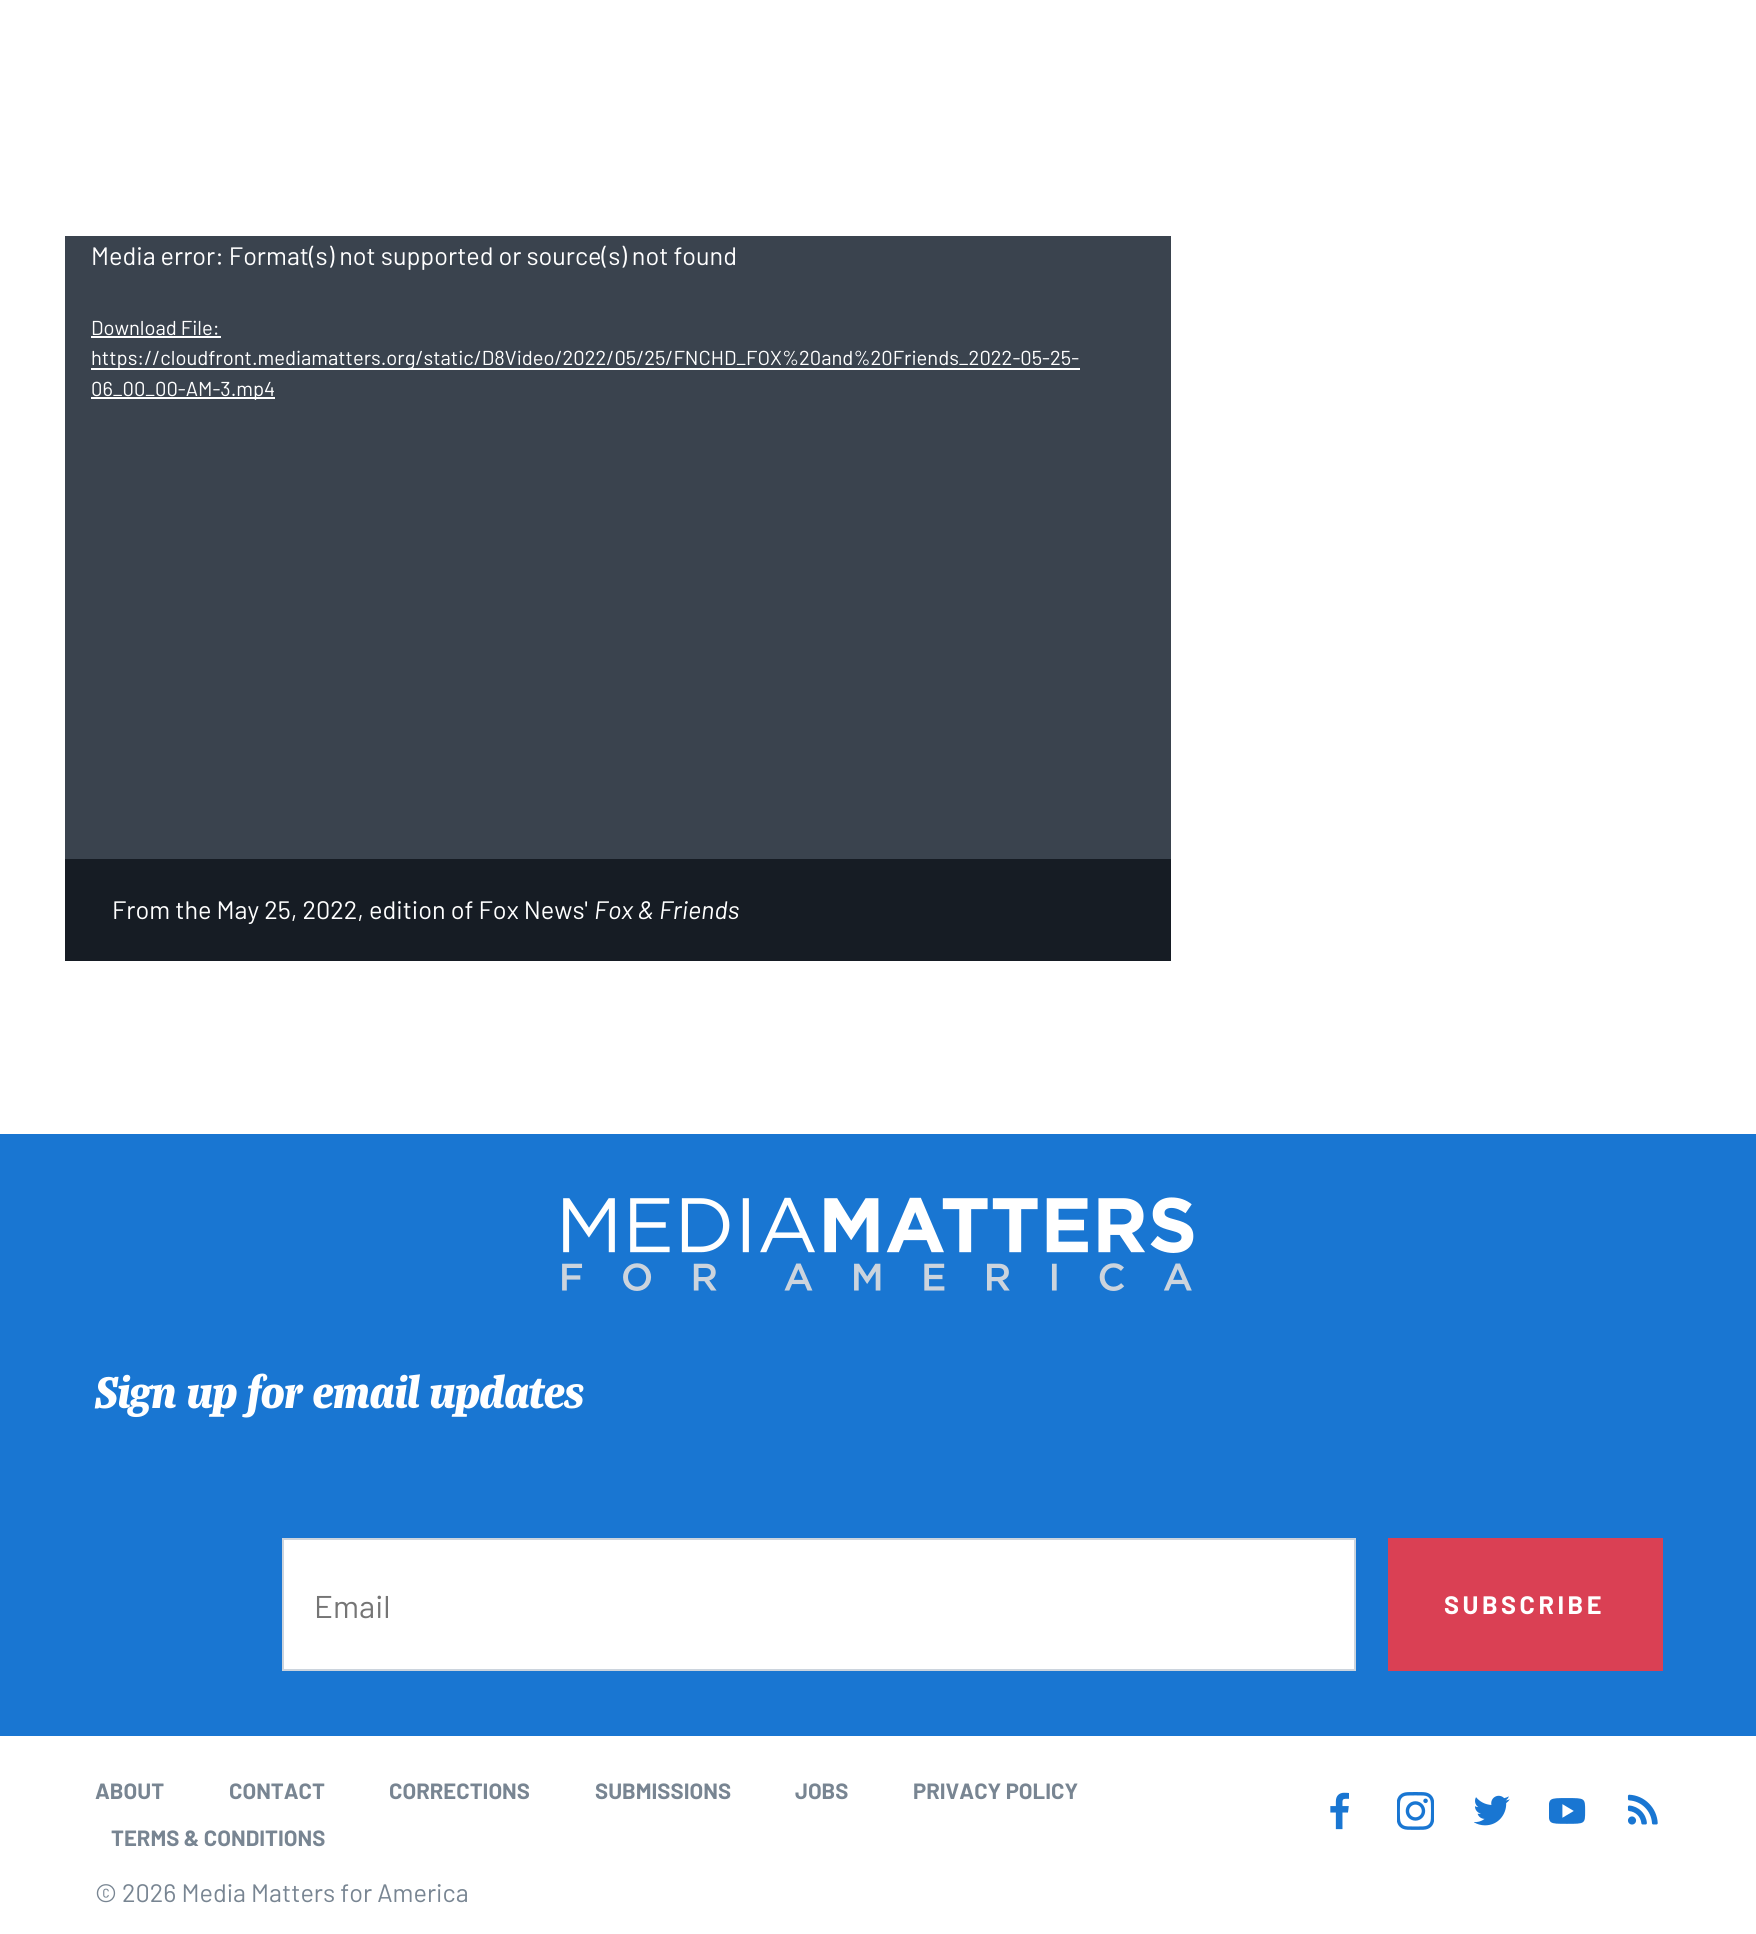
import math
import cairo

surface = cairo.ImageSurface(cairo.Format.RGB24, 1756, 1934)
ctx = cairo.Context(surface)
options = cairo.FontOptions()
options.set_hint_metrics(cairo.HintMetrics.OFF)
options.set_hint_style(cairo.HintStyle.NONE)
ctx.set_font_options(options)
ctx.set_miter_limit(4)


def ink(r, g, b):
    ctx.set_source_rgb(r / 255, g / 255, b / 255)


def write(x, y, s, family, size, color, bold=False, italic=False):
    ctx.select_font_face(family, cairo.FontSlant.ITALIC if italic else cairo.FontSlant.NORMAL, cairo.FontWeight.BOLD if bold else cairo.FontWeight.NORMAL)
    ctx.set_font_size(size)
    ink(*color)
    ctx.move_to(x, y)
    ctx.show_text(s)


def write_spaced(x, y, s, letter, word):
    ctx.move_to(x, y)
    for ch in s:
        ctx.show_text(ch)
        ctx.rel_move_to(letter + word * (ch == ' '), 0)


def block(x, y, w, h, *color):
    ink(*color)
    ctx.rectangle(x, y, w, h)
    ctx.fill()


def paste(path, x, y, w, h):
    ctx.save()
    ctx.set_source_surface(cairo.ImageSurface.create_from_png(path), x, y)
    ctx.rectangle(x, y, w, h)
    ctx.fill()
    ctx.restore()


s1 = dict(family="Barlow", size=25.2, color=(255, 255, 255))
s2 = dict(family="Barlow", size=20.15, color=(255, 255, 255))
s3 = dict(family="Barlow", size=25.25, color=(255, 255, 255))
s4 = dict(family="Barlow", size=25.25, color=(255, 255, 255), italic=True)
s5 = dict(family="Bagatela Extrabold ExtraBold", size=47.5, color=(255, 255, 255), italic=True)
s6 = dict(family="Barlow", size=31.5, color=(117, 117, 117))
s7 = dict(family="Barlow", size=22.1, color=(120, 133, 146), bold=True)
s8 = dict(family="Barlow", size=25.25, color=(120, 133, 146))

ink(255, 255, 255)
ctx.paint()
block(65, 236, 1106, 623, 58, 67, 78)
write(91, 265, "Media error: Format(s) not supported or source(s) not found", **s1)
write(91, 335, "Download File:", **s2)
block(91, 336, 130, 2, 255, 255, 255)
block(91, 368, 989, 2, 255, 255, 255)
write(91, 365, "https://cloudfront.mediamatters.org/static/D8Video/2022/05/25/FNCHD_FOX%20and%20Friends_2022-05-25-", **s2)
block(91, 397, 184, 2, 255, 255, 255)
write(91, 396, "06_00_00-AM-3.mp4", **s2)
block(65, 859, 1106, 102, 22, 28, 36)
write(112, 919, "From the May 25, 2022, edition of Fox News'", **s3)
write(594, 919, "Fox & Friends", **s4)
block(0, 1134, 1756, 602, 25, 118, 210)
paste("pic1.png", 562, 1197, 632, 94)
write(95, 1408, "Sign up for email updates", **s5)
ctx.rectangle(283, 1539, 1072, 131)
ctx.fill_preserve()
ink(204, 212, 221)
ctx.stroke()
write(314, 1618, "Email", **s6)
block(1388, 1538, 275, 133, 218, 64, 84)
ctx.select_font_face("Barlow", cairo.FontSlant.NORMAL, cairo.FontWeight.BOLD)
ctx.set_font_size(25.25)
ink(255, 255, 255)
write_spaced(1444, 1614, "SUBSCRIBE", 3.5, 0)
write(95, 1799, "ABOUT", **s7)
write(229, 1799, "CONTACT", **s7)
write(389, 1799, "CORRECTIONS", **s7)
write(595, 1799, "SUBMISSIONS", **s7)
write(795, 1799, "JOBS", **s7)
write(913, 1799, "PRIVACY POLICY", **s7)
write(111, 1846, "TERMS & CONDITIONS", **s7)
paste("pic2.png", 1330, 1792, 19, 38)
paste("pic3.png", 1397, 1792, 37, 38)
paste("pic4.png", 1474, 1795, 36, 31)
paste("pic5.png", 1549, 1798, 37, 26)
paste("pic6.png", 1627, 1794, 31, 31)
write(95, 1902, "© 2026 Media Matters for America", **s8)
surface.write_to_png("screenshot.png")
